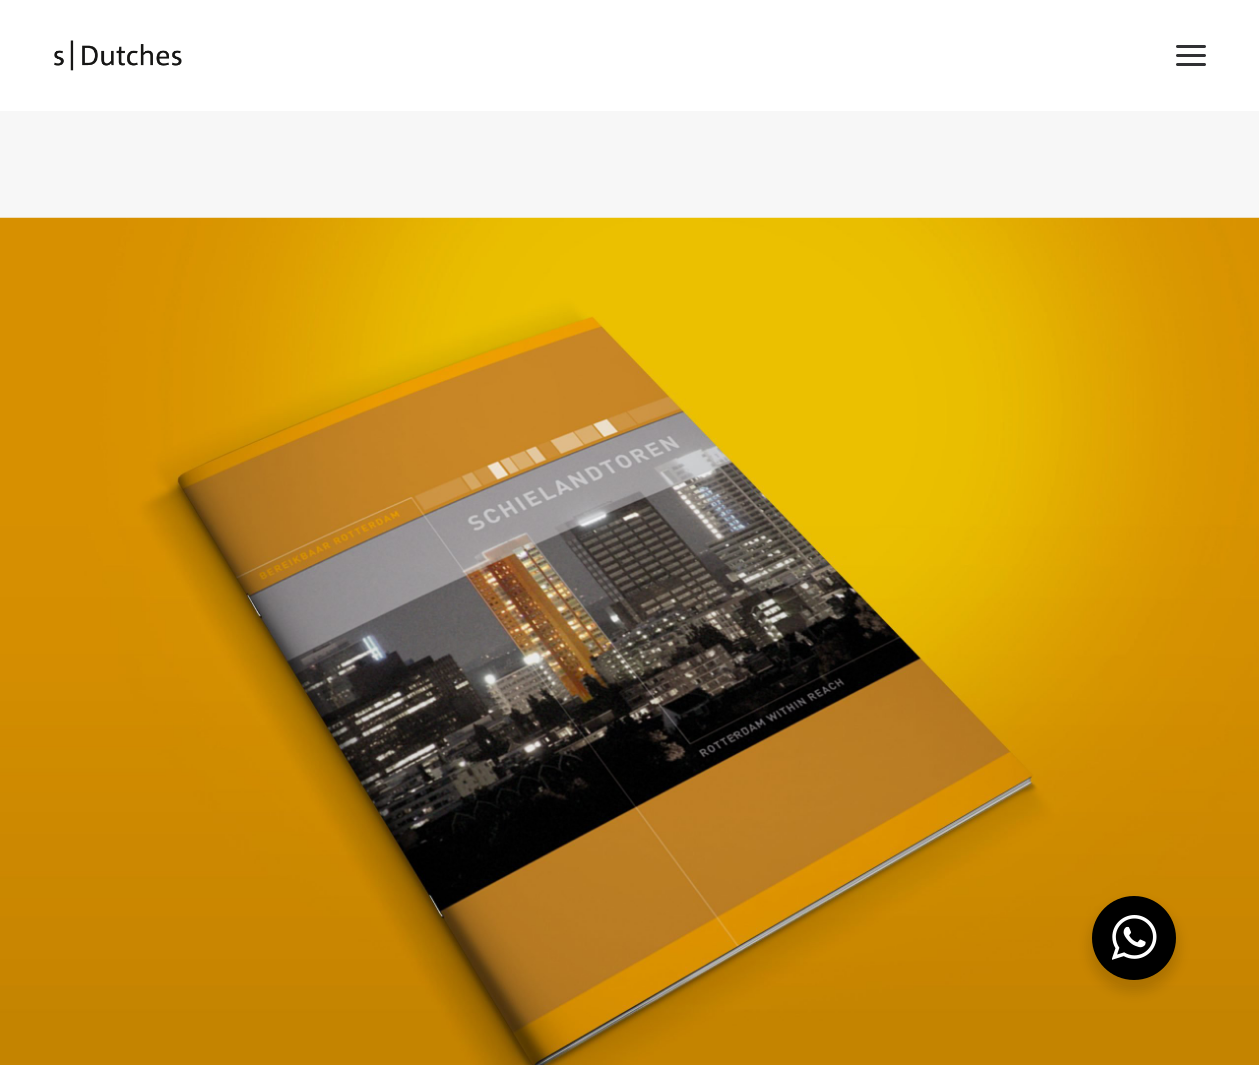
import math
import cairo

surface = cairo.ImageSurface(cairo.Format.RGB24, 1259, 1065)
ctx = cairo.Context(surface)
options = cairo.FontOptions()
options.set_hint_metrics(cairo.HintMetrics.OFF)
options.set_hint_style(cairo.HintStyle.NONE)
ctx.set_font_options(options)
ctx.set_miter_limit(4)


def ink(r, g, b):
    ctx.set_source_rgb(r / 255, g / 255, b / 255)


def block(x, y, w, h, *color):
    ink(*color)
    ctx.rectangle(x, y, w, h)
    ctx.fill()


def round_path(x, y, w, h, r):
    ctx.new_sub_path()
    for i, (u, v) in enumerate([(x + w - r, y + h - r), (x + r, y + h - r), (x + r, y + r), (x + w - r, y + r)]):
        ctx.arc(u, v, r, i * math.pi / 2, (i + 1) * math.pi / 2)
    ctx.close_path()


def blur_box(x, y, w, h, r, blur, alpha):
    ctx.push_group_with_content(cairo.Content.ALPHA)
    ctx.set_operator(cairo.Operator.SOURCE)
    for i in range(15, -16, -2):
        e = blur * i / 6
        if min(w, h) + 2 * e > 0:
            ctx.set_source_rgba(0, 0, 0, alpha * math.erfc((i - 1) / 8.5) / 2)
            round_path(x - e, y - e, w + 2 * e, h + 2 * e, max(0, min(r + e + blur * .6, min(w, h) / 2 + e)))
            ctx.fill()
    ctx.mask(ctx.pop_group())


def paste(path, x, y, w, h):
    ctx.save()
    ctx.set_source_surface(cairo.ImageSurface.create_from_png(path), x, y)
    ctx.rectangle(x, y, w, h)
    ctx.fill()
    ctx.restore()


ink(247, 247, 247)
ctx.paint()
block(0, 0, 1259, 111, 255, 255, 255)
paste("pic1.png", 54, 40, 128, 31)
ink(48, 49, 51)
round_path(1176, 54, 30, 3, 1.5)
ctx.fill()
round_path(1176, 45, 30, 3, 1.5)
ctx.fill()
round_path(1176, 63, 30, 3, 1.5)
ctx.fill()
paste("pic2.png", 0, 217, 1259, 848)
ink(0, 0, 0)
blur_box(1089, 902, 90, 90, 45, 6, 0.14)
ink(0, 0, 0)
ctx.arc(1134, 938, 42, 0, 2 * math.pi)
ctx.fill()
paste("pic3.png", 1112, 915, 45, 45)
surface.write_to_png("screenshot.png")
